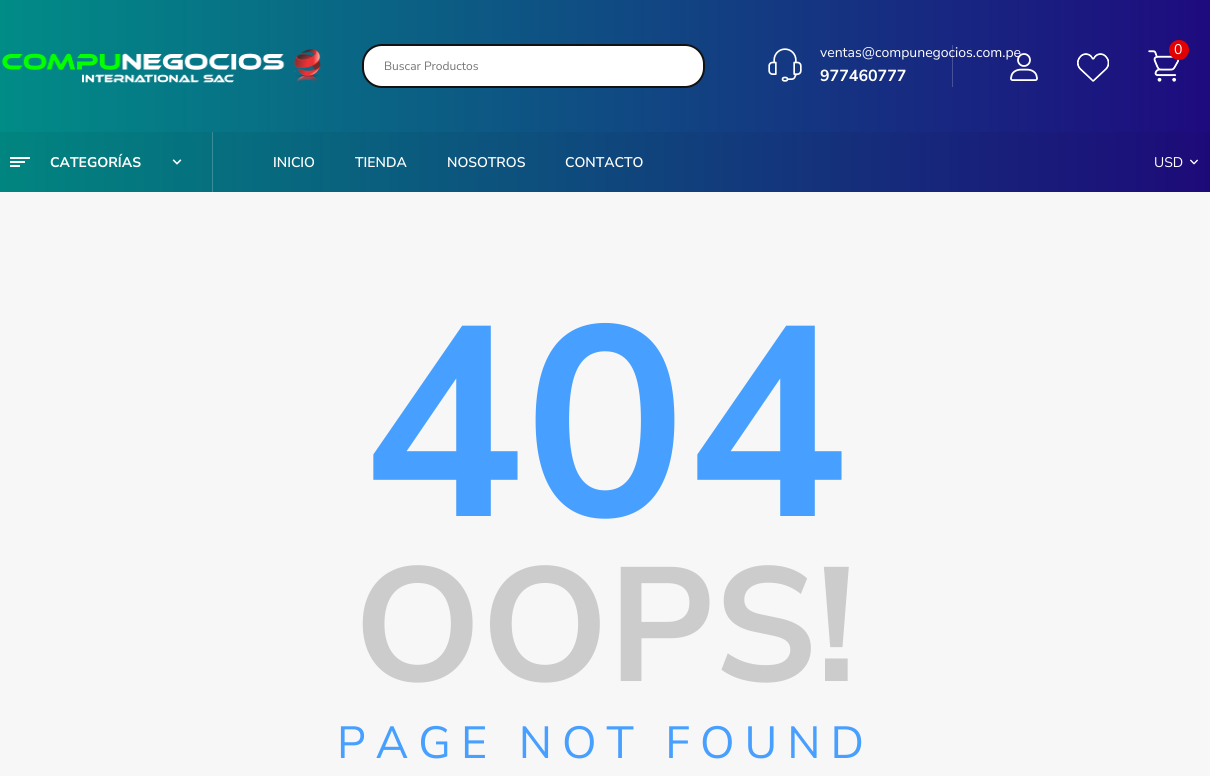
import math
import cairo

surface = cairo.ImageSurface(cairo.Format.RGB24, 1210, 776)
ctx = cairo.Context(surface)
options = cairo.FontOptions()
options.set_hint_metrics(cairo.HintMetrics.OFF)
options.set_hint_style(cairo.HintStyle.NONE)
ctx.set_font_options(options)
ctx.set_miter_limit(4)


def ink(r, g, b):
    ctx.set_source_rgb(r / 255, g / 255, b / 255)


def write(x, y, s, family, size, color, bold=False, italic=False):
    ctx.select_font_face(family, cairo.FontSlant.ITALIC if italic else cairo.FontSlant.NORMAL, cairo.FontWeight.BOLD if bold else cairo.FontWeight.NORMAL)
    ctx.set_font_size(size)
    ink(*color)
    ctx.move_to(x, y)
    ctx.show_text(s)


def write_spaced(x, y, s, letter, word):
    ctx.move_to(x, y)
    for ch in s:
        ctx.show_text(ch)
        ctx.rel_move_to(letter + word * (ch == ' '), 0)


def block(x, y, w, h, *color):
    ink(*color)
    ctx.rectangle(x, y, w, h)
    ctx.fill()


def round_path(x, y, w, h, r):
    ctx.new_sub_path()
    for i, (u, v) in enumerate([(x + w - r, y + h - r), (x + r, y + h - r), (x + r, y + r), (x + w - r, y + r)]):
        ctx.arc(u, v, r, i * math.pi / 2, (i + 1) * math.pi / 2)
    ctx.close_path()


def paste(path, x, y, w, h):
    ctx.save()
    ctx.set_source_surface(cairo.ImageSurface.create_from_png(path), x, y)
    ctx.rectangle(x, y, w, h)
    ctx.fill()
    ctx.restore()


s1 = dict(family="Nunito Sans", size=12, color=(117, 117, 117))
s2 = dict(family="Nunito Sans", size=14, color=(255, 255, 255))
s3 = dict(family="Nunito Sans", size=16, color=(255, 255, 255), bold=True)
s4 = dict(family="Nunito Sans", size=14, color=(255, 255, 255), bold=True)
s5 = dict(family="Nunito Sans SemiBold", size=14, color=(255, 255, 255))
s6 = dict(family="Nunito Sans", size=270, color=(71, 159, 255), bold=True)
s7 = dict(family="Nunito Sans", size=162, color=(204, 204, 204), bold=True)

ink(255, 255, 255)
ctx.paint()
gradient = cairo.LinearGradient(0, 66, 1210, 66)
gradient.add_color_stop_rgba(0, 0.004, 0.549, 0.529, 1)
gradient.add_color_stop_rgba(1, 0.118, 0.043, 0.498, 1)
ctx.set_source(gradient)
ctx.rectangle(0, 0, 1210, 132)
ctx.fill()
paste("pic1.png", 2, 49, 319, 34)
ink(255, 255, 255)
round_path(363, 45, 341, 42, 19)
ctx.fill_preserve()
ink(18, 18, 18)
ctx.stroke()
write(384, 70, "Buscar Productos", **s1)
block(952, 45, 1, 42, 70, 81, 154)
paste("pic2.png", 768, 48, 34, 34)
write(820, 57, "ventas@compunegocios.com.pe", **s2)
write(820, 81, "977460777", **s3)
paste("pic3.png", 1148, 50, 31, 32)
ink(227, 0, 0)
ctx.arc(1179, 50, 10, 0, 2 * math.pi)
ctx.fill()
write(1174, 54, "0", **s2)
paste("pic4.png", 1010, 53, 28, 28)
paste("pic5.png", 1077, 53, 32, 29)
gradient = cairo.LinearGradient(0, 162, 1210, 162)
gradient.add_color_stop_rgba(0, 0.004, 0.522, 0.502, 1)
gradient.add_color_stop_rgba(1, 0.114, 0.039, 0.475, 1)
ctx.set_source(gradient)
ctx.rectangle(0, 132, 1210, 60)
ctx.fill()
block(212, 132, 1, 60, 56, 140, 153)
paste("pic6.png", 10, 157, 20, 10)
write(50, 167, "CATEGORÍAS", **s4)
paste("pic7.png", 172, 159, 10, 6)
write(273, 167, "INICIO", **s5)
write(355, 167, "TIENDA", **s5)
write(447, 167, "NOSOTROS", **s5)
write(565, 167, "CONTACTO", **s5)
write(1154, 167, "USD", **s2)
paste("pic8.png", 1190, 159, 8, 6)
block(0, 192, 1210, 584, 247, 247, 247)
write(362, 516, "404", **s6)
write(354, 681, "OOPS!", **s7)
ctx.select_font_face("Nunito Sans")
ctx.set_font_size(45)
ink(71, 159, 255)
write_spaced(337, 758, "PAGE NOT FOUND", 10, 0)
surface.write_to_png("screenshot.png")
